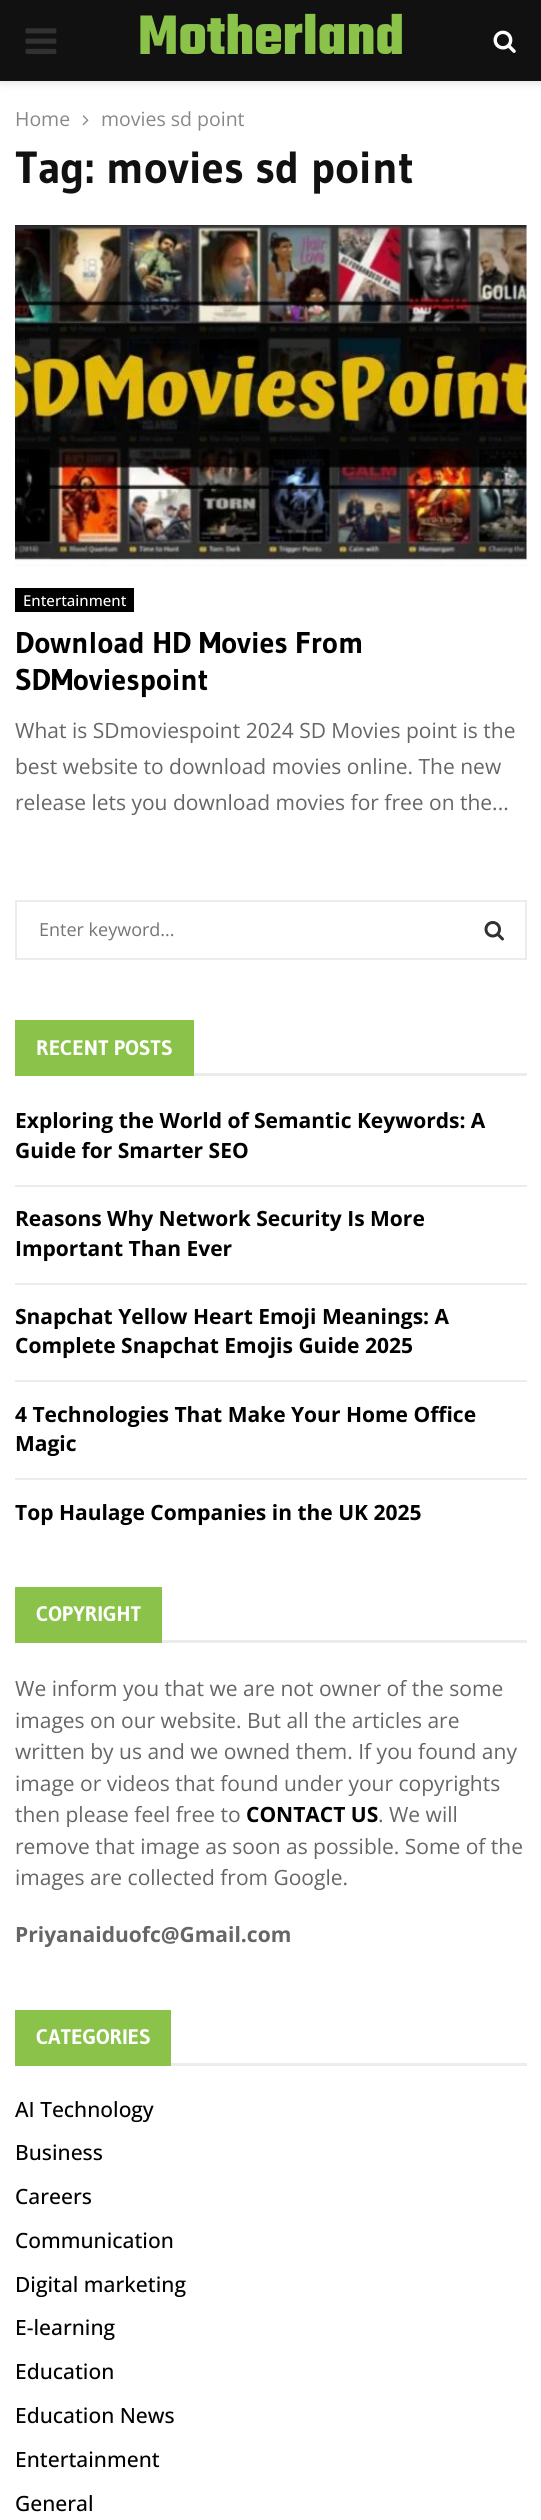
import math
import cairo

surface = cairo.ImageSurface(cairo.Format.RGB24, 541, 2520)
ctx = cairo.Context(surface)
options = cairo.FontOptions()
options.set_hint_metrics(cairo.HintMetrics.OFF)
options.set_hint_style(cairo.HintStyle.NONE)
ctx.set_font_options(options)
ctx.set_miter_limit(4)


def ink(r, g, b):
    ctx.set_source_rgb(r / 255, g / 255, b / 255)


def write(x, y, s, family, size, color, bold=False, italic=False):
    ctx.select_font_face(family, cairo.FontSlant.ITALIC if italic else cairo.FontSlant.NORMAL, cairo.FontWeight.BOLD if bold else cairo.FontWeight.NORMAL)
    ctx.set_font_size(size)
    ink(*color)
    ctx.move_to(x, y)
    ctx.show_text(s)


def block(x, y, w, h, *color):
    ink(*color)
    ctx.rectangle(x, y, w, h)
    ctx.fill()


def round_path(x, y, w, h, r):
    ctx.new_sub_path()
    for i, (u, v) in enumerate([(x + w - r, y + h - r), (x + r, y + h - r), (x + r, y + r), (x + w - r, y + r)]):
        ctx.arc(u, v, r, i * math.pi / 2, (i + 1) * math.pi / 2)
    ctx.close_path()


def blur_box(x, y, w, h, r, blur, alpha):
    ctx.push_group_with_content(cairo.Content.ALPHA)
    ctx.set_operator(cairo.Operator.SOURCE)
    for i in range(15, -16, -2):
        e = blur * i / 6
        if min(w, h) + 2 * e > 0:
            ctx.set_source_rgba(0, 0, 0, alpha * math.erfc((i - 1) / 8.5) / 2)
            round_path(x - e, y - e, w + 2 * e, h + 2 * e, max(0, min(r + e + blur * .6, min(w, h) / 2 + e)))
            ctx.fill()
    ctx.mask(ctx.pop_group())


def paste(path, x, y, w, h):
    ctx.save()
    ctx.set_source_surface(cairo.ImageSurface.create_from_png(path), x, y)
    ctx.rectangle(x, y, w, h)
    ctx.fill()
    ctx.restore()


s1 = dict(family="Teko", size=60, color=(139, 195, 74), bold=True)
s2 = dict(family="Open Sans", size=19.5, color=(136, 136, 136))
s3 = dict(family="Gudea", size=45, color=(17, 17, 17), bold=True)
s4 = dict(family="Open Sans Medium", size=15, color=(255, 255, 255))
s5 = dict(family="Gudea", size=30, color=(0, 0, 0), bold=True)
s6 = dict(family="Open Sans", size=21, color=(102, 102, 102))
s7 = dict(family="Open Sans", size=18, color=(117, 117, 117))
s8 = dict(family="Gudea", size=21, color=(255, 255, 255), bold=True)
s9 = dict(family="Open Sans", size=21, color=(0, 0, 0), bold=True)
s10 = dict(family="Open Sans", size=21, color=(102, 102, 102), bold=True)
s11 = dict(family="Open Sans Medium", size=21, color=(0, 0, 0))

ink(255, 255, 255)
ctx.paint()
ink(190, 190, 190)
blur_box(0, 2, 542, 81, 0, 4, 0.46)
block(0, 0, 541, 81, 17, 17, 17)
paste("pic1.png", 25, 28, 32, 26)
write(138, 54, "Motherland", **s1)
paste("pic2.png", 493, 30, 23, 23)
write(15, 126, "Home", **s2)
paste("pic3.png", 82, 115, 7, 11)
write(101, 126, "movies sd point", **s2)
write(15, 183, "Tag: movies sd point", **s3)
block(15, 225, 512, 341, 245, 245, 245)
paste("pic4.png", 15, 225, 512, 341)
block(15, 588, 119, 24, 0, 0, 0)
write(23, 606, "Entertainment", **s4)
write(15, 653, "Download HD Movies From", **s5)
write(15, 690, "SDMoviespoint", **s5)
write(15, 738, "What is SDmoviespoint 2024 SD Movies point is the", **s6)
write(15, 774, "best website to download movies online. The new", **s6)
write(15, 810, "release lets you download movies for free on the...", **s6)
ctx.rectangle(16, 901, 510, 58)
ink(236, 236, 236)
ctx.stroke()
write(39, 936, "Enter keyword...", **s7)
paste("pic5.png", 484, 921, 20, 20)
block(194, 1073, 333, 3, 236, 236, 236)
block(15, 1020, 179, 56, 139, 195, 74)
write(36, 1055, "RECENT POSTS", **s8)
block(15, 1185, 512, 2, 236, 236, 236)
write(15, 1128, "Exploring the World of Semantic Keywords: A", **s9)
write(15, 1158, "Guide for Smarter SEO", **s9)
block(15, 1283, 512, 2, 236, 236, 236)
write(15, 1226, "Reasons Why Network Security Is More", **s9)
write(15, 1256, "Important Than Ever", **s9)
block(15, 1380, 512, 2, 236, 236, 236)
write(15, 1324, "Snapchat Yellow Heart Emoji Meanings: A", **s9)
write(15, 1353, "Complete Snapchat Emojis Guide 2025", **s9)
block(15, 1478, 512, 2, 236, 236, 236)
write(15, 1422, "4 Technologies That Make Your Home Office", **s9)
write(15, 1451, "Magic", **s9)
write(15, 1520, "Top Haulage Companies in the UK 2025", **s9)
block(162, 1640, 365, 3, 236, 236, 236)
block(15, 1587, 147, 56, 139, 195, 74)
write(36, 1621, "COPYRIGHT", **s8)
write(15, 1696, "We inform you that we are not owner of the some", **s6)
write(15, 1728, "images on our website. But all the articles are", **s6)
write(15, 1759, "written by us and we owned them. If you found any", **s6)
write(15, 1791, "image or videos that found under your copyrights", **s6)
write(15, 1822, "then please feel free to", **s6)
write(246, 1822, "CONTACT US", **s9)
write(378, 1822, ". We will", **s6)
write(15, 1854, "remove that image as soon as possible. Some of the", **s6)
write(15, 1885, "images are collected from Google.", **s6)
write(15, 1942, "Priyanaiduofc@Gmail.com", **s10)
block(171, 2063, 356, 3, 236, 236, 236)
block(15, 2010, 156, 56, 139, 195, 74)
write(36, 2044, "CATEGORIES", **s8)
write(15, 2117, "AI Technology", **s11)
write(15, 2160, "Business", **s11)
write(15, 2204, "Careers", **s11)
write(15, 2248, "Communication", **s11)
write(15, 2292, "Digital marketing", **s11)
write(15, 2335, "E-learning", **s11)
write(15, 2379, "Education", **s11)
write(15, 2423, "Education News", **s11)
write(15, 2467, "Entertainment", **s11)
write(15, 2511, "General", **s11)
surface.write_to_png("screenshot.png")
